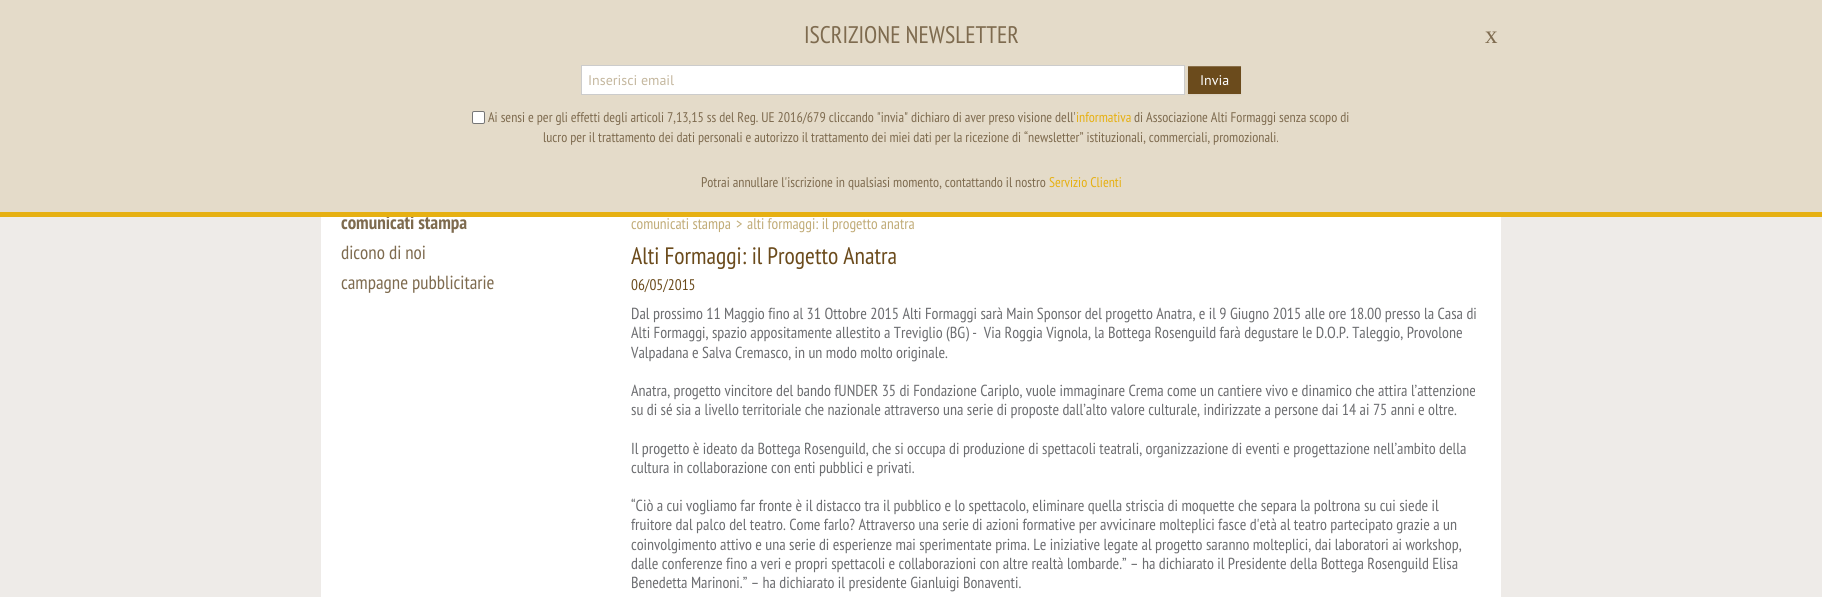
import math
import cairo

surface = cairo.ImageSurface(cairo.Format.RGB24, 1822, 597)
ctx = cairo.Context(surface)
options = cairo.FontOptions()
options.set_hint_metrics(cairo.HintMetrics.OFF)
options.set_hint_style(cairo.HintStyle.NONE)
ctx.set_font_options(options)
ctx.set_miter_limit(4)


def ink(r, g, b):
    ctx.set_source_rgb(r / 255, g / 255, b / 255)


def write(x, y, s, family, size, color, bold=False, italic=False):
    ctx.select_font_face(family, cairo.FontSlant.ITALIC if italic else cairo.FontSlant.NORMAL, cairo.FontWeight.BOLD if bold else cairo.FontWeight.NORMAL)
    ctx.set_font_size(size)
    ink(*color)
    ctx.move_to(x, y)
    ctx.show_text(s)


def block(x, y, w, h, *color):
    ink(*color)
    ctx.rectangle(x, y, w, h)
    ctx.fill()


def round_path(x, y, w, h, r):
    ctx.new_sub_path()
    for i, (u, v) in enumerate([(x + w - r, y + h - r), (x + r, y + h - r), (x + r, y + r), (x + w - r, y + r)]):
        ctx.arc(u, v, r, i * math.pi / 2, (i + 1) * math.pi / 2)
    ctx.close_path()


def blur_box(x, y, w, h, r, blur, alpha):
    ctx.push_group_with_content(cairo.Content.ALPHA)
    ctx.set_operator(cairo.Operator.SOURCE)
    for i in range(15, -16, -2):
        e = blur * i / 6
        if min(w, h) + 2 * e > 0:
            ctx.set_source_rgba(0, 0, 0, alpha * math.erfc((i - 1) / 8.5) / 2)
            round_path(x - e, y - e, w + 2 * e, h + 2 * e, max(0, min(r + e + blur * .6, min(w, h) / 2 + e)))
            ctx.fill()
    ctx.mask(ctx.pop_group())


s1 = dict(family="PT Sans Narrow", size=19, color=(126, 107, 79), bold=True)
s2 = dict(family="PT Sans Narrow", size=24, color=(126, 107, 79))
s3 = dict(family="Liberation Serif", size=25, color=(126, 107, 79))
s4 = dict(family="PT Sans", size=14, color=(196, 183, 158))
s5 = dict(family="PT Sans", size=14, color=(255, 255, 255))
s6 = dict(family="PT Sans Narrow", size=14, color=(126, 107, 79))
s7 = dict(family="PT Sans Narrow", size=14, color=(230, 176, 18))
s8 = dict(family="PT Sans Narrow", size=19, color=(126, 107, 79))
s9 = dict(family="PT Sans Narrow", size=15.4, color=(193, 172, 120))
s10 = dict(family="PT Sans Narrow", size=23.75, color=(107, 75, 28))
s11 = dict(family="PT Sans Narrow", size=15.4, color=(107, 75, 28))
s12 = dict(family="PT Sans Narrow", size=16, color=(109, 110, 113))

ink(238, 235, 232)
ctx.paint()
block(0, 0, 1822, 212, 228, 219, 201)
block(321, 217, 1180, 380, 255, 255, 255)
write(341, 229, "comunicati stampa", **s1)
block(0, 212, 1822, 5, 230, 176, 18)
write(804, 43, "ISCRIZIONE NEWSLETTER", **s2)
write(1485, 43, "x", **s3)
ink(255, 255, 255)
ctx.rectangle(581.5, 65.5, 603, 29)
ctx.fill_preserve()
ink(204, 204, 204)
ctx.set_line_width(1)
ctx.stroke()
write(588, 85, "Inserisci email", **s4)
ink(0, 0, 0)
blur_box(1188, 67, 53, 28, 0, 1, 0.05)
block(1188, 67, 53, 27, 107, 75, 28)
block(1188, 66, 53, 1, 137, 111, 73)
write(1200, 85, "Invia", **s5)
round_path(472.5, 111.5, 12, 12, 1.5)
ctx.fill_preserve()
ink(118, 118, 118)
ctx.stroke()
write(488, 122, "Ai sensi e per gli effetti degli articoli 7,13,15 ss del Reg. UE 2016/679 cliccando \"invia\" dichiaro di aver preso visione dell’", **s6)
write(1076, 122, "informativa", **s7)
write(1134, 122, "di Associazione Alti Formaggi senza scopo di", **s6)
write(543, 142, "lucro per il trattamento dei dati personali e autorizzo il trattamento dei miei dati per la ricezione di “newsletter” istituzionali, commerciali, promozionali.", **s6)
write(701, 187, "Potrai annullare l'iscrizione in qualsiasi momento, contattando il nostro", **s6)
write(1049, 187, "Servizio Clienti", **s7)
write(341, 259, "dicono di noi", **s8)
write(341, 289, "campagne pubblicitarie", **s8)
write(631, 229, "comunicati stampa", **s9)
write(736, 229, ">", **s9)
write(747, 229, "alti formaggi: il progetto anatra", **s9)
write(631, 264, "Alti Formaggi: il Progetto Anatra", **s10)
write(631, 290, "06/05/2015", **s11)
write(631, 319, "Dal prossimo 11 Maggio fino al 31 Ottobre 2015 Alti Formaggi sarà Main Sponsor del progetto Anatra, e il 9 Giugno 2015 alle ore 18.00 presso la Casa di", **s12)
write(631, 338, "Alti Formaggi, spazio appositamente allestito a Treviglio (BG) -  Via Roggia Vignola, la Bottega Rosenguild farà degustare le D.O.P. Taleggio, Provolone", **s12)
write(631, 358, "Valpadana e Salva Cremasco, in un modo molto originale.", **s12)
write(631, 396, "Anatra, progetto vincitore del bando fUNDER 35 di Fondazione Cariplo, vuole immaginare Crema come un cantiere vivo e dinamico che attira l’attenzione", **s12)
write(631, 415, "su di sé sia a livello territoriale che nazionale attraverso una serie di proposte dall’alto valore culturale, indirizzate a persone dai 14 ai 75 anni e oltre.", **s12)
write(631, 454, "Il progetto è ideato da Bottega Rosenguild, che si occupa di produzione di spettacoli teatrali, organizzazione di eventi e progettazione nell’ambito della", **s12)
write(631, 473, "cultura in collaborazione con enti pubblici e privati.", **s12)
write(631, 511, "“Ciò a cui vogliamo far fronte è il distacco tra il pubblico e lo spettacolo, eliminare quella striscia di moquette che separa la poltrona su cui siede il", **s12)
write(631, 530, "fruitore dal palco del teatro. Come farlo? Attraverso una serie di azioni formative per avvicinare molteplici fasce d'età al teatro partecipato grazie a un", **s12)
write(631, 550, "coinvolgimento attivo e una serie di esperienze mai sperimentate prima. Le iniziative legate al progetto saranno molteplici, dai laboratori ai workshop,", **s12)
write(631, 569, "dalle conferenze fino a veri e propri spettacoli e collaborazioni con altre realtà lombarde.” – ha dichiarato il Presidente della Bottega Rosenguild Elisa", **s12)
write(631, 588, "Benedetta Marinoni.” – ha dichiarato il presidente Gianluigi Bonaventi.", **s12)
surface.write_to_png("screenshot.png")
